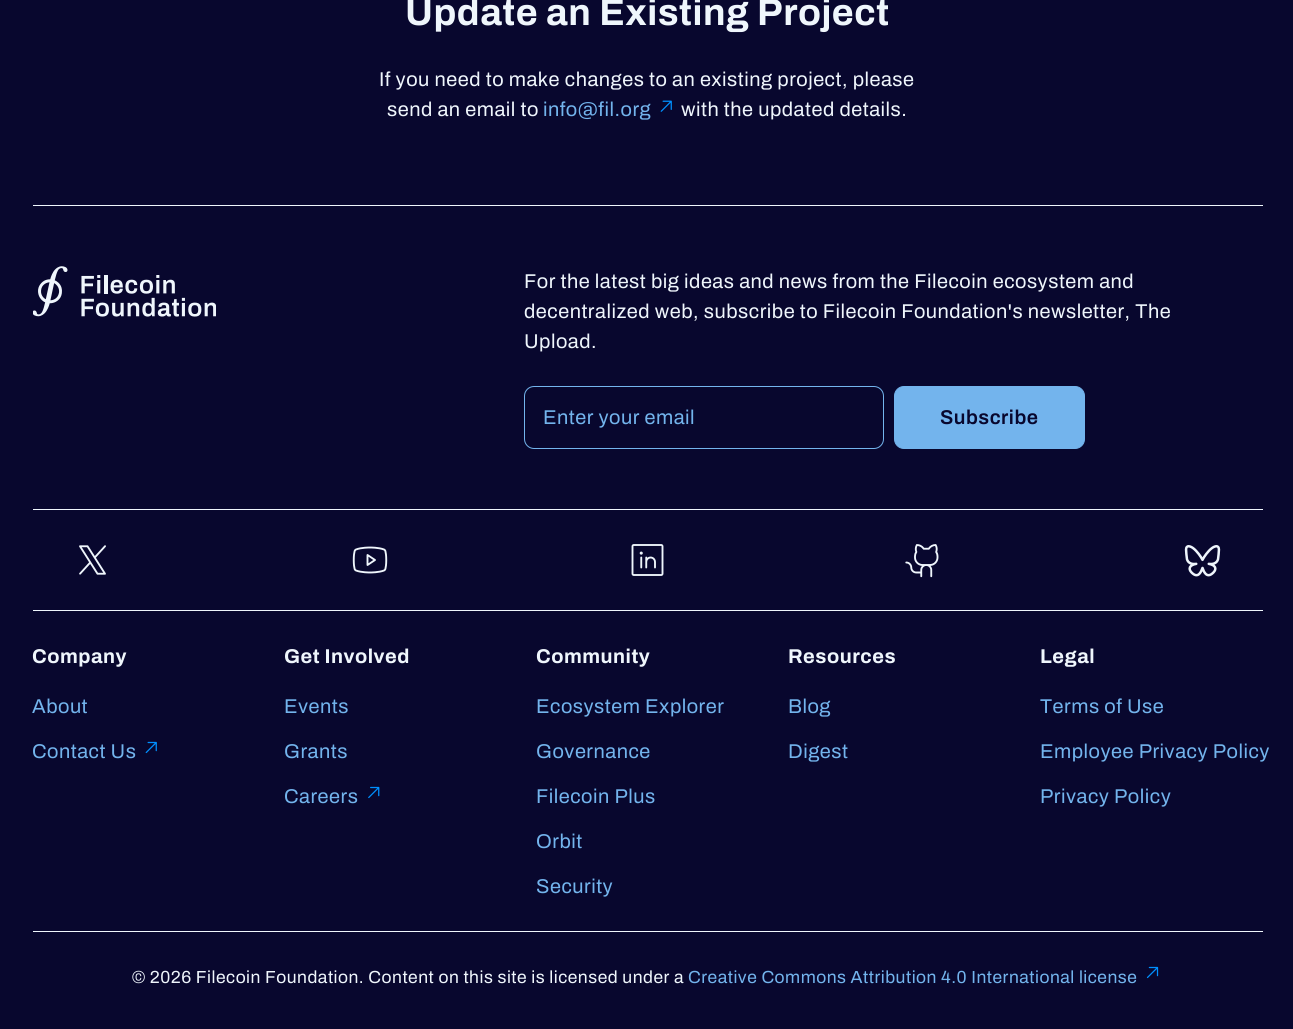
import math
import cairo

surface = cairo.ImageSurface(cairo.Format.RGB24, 1293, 1029)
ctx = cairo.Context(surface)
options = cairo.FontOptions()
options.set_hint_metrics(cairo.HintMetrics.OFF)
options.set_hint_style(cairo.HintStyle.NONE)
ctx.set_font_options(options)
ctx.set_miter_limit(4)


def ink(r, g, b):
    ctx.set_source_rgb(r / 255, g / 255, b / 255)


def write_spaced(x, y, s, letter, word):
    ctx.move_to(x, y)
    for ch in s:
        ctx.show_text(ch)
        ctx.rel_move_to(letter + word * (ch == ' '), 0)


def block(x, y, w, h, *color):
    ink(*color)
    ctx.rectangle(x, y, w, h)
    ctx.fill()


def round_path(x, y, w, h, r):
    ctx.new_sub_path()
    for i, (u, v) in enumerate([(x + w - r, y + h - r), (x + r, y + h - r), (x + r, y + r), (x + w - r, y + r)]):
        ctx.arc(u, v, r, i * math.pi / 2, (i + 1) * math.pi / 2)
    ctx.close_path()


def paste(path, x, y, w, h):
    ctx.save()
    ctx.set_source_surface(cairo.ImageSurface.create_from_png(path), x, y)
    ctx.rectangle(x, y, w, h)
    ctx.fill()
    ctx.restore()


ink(8, 7, 46)
ctx.paint()
ctx.select_font_face("Archivo", cairo.FontSlant.NORMAL, cairo.FontWeight.BOLD)
ctx.set_font_size(37.5)
ink(239, 246, 252)
write_spaced(405, 25, "Update an Existing Project", 0.5, 0)
ctx.select_font_face("Archivo")
ctx.set_font_size(20)
write_spaced(379, 86, "If you need to make changes to an existing project, please", 0.5, 0)
write_spaced(387, 116, "send an email to", 0.5, 0)
ink(115, 180, 237)
write_spaced(543, 116, "info@fil.org", 0.5, 0)
paste("pic1.png", 660, 100, 12, 12)
ink(239, 246, 252)
write_spaced(681, 116, "with the updated details.", 0.5, 0)
block(33, 205, 1230, 1, 239, 246, 252)
paste("pic2.png", 33, 266, 183, 51)
write_spaced(524, 288, "For the latest big ideas and news from the Filecoin ecosystem and", 0.5, 0)
write_spaced(524, 318, "decentralized web, subscribe to Filecoin Foundation's newsletter, The", 0.5, 0)
write_spaced(524, 348, "Upload.", 0.5, 0)
round_path(524.5, 386.5, 359, 62, 9.5)
ink(115, 180, 237)
ctx.set_line_width(1)
ctx.stroke()
write_spaced(543, 424, "Enter your email", 0.5, 0)
round_path(894.5, 386.5, 190, 62, 9.5)
ctx.fill_preserve()
ctx.stroke()
ctx.select_font_face("Archivo SemiBold")
ink(8, 7, 46)
write_spaced(940, 424, "Subscribe", 0.5, 0)
block(33, 509, 1230, 1, 239, 246, 252)
paste("pic3.png", 79, 545, 27, 30)
paste("pic4.png", 352, 546, 36, 28)
paste("pic5.png", 631, 544, 33, 32)
paste("pic6.png", 905, 544, 34, 34)
paste("pic7.png", 1184, 545, 37, 32)
block(33, 610, 1230, 1, 239, 246, 252)
ctx.select_font_face("Archivo", cairo.FontSlant.NORMAL, cairo.FontWeight.BOLD)
write_spaced(32, 663, "Company", 0.5, 0)
ctx.select_font_face("Archivo")
ink(115, 180, 237)
write_spaced(32, 713, "About", 0.5, 0)
write_spaced(32, 758, "Contact Us", 0.5, 0)
paste("pic8.png", 145, 741, 12, 13)
ctx.select_font_face("Archivo", cairo.FontSlant.NORMAL, cairo.FontWeight.BOLD)
ink(239, 246, 252)
write_spaced(284, 663, "Get Involved", 0.5, 0)
ctx.select_font_face("Archivo")
ink(115, 180, 237)
write_spaced(284, 713, "Events", 0.5, 0)
write_spaced(284, 758, "Grants", 0.5, 0)
write_spaced(284, 803, "Careers", 0.5, 0)
paste("pic9.png", 368, 786, 12, 13)
ctx.select_font_face("Archivo", cairo.FontSlant.NORMAL, cairo.FontWeight.BOLD)
ink(239, 246, 252)
write_spaced(536, 663, "Community", 0.5, 0)
ctx.select_font_face("Archivo")
ink(115, 180, 237)
write_spaced(536, 713, "Ecosystem Explorer", 0.5, 0)
write_spaced(536, 758, "Governance", 0.5, 0)
write_spaced(536, 803, "Filecoin Plus", 0.5, 0)
write_spaced(536, 848, "Orbit", 0.5, 0)
write_spaced(536, 893, "Security", 0.5, 0)
ctx.select_font_face("Archivo", cairo.FontSlant.NORMAL, cairo.FontWeight.BOLD)
ink(239, 246, 252)
write_spaced(788, 663, "Resources", 0.5, 0)
ctx.select_font_face("Archivo")
ink(115, 180, 237)
write_spaced(788, 713, "Blog", 0.5, 0)
write_spaced(788, 758, "Digest", 0.5, 0)
ctx.select_font_face("Archivo", cairo.FontSlant.NORMAL, cairo.FontWeight.BOLD)
ink(239, 246, 252)
write_spaced(1040, 663, "Legal", 0.5, 0)
ctx.select_font_face("Archivo")
ink(115, 180, 237)
write_spaced(1040, 713, "Terms of Use", 0.5, 0)
write_spaced(1040, 758, "Employee Privacy Policy", 0.5, 0)
write_spaced(1040, 803, "Privacy Policy", 0.5, 0)
block(33, 931, 1230, 1, 239, 246, 252)
ctx.set_font_size(17.5)
write_spaced(132, 983, "© 2026 Filecoin Foundation. Content on this site is licensed under a", 0.5, 0)
ink(115, 180, 237)
write_spaced(688, 983, "Creative Commons Attribution 4.0 International license", 0.5, 0)
paste("pic10.png", 1146, 966, 13, 13)
surface.write_to_png("screenshot.png")
